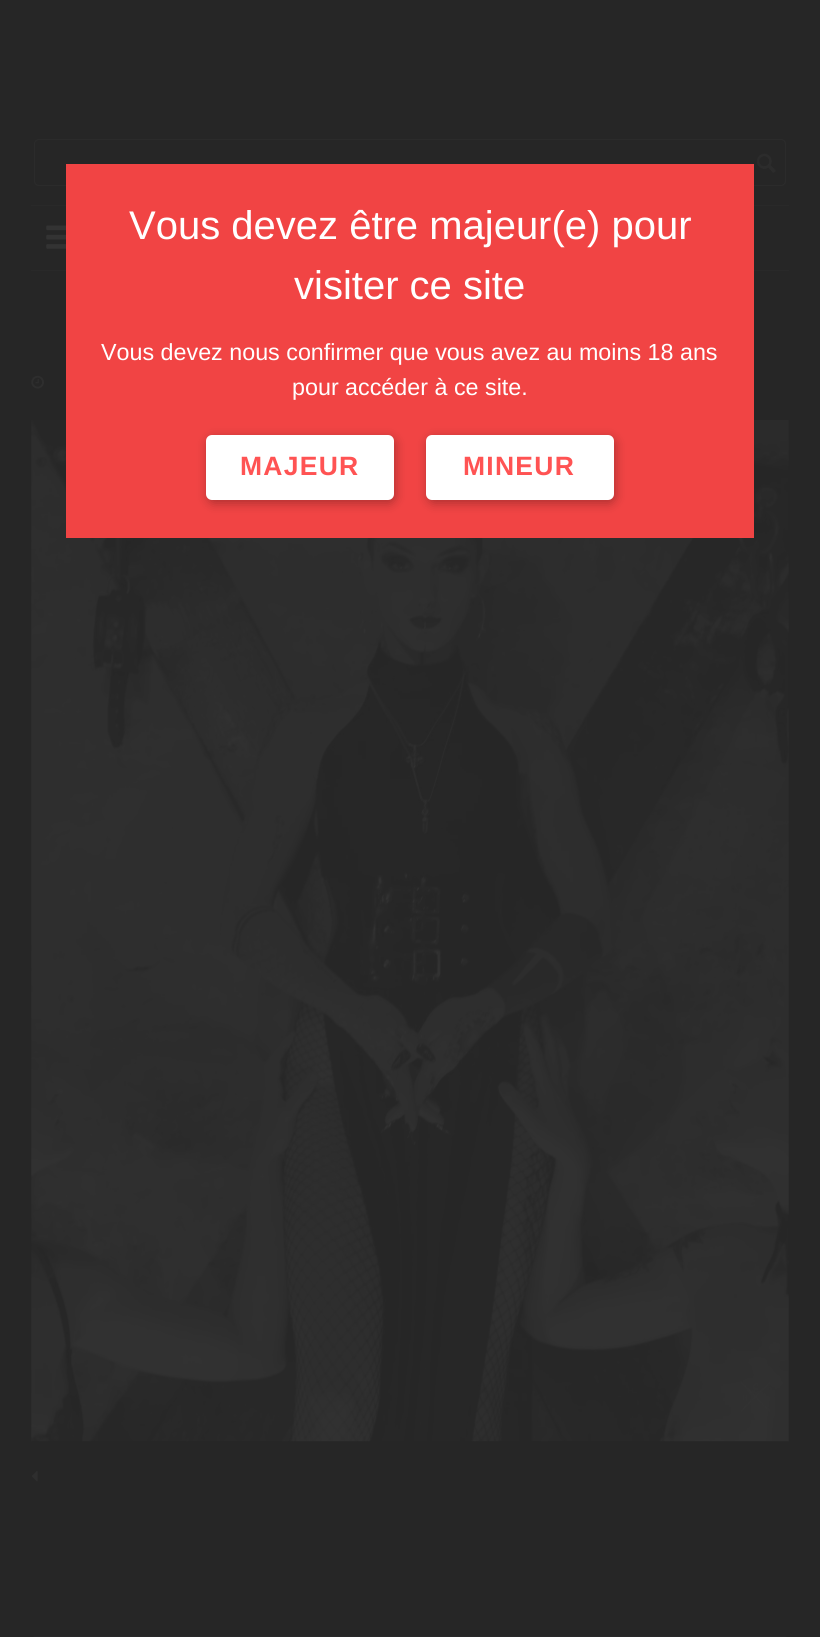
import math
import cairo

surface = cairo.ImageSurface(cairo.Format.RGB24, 820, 1637)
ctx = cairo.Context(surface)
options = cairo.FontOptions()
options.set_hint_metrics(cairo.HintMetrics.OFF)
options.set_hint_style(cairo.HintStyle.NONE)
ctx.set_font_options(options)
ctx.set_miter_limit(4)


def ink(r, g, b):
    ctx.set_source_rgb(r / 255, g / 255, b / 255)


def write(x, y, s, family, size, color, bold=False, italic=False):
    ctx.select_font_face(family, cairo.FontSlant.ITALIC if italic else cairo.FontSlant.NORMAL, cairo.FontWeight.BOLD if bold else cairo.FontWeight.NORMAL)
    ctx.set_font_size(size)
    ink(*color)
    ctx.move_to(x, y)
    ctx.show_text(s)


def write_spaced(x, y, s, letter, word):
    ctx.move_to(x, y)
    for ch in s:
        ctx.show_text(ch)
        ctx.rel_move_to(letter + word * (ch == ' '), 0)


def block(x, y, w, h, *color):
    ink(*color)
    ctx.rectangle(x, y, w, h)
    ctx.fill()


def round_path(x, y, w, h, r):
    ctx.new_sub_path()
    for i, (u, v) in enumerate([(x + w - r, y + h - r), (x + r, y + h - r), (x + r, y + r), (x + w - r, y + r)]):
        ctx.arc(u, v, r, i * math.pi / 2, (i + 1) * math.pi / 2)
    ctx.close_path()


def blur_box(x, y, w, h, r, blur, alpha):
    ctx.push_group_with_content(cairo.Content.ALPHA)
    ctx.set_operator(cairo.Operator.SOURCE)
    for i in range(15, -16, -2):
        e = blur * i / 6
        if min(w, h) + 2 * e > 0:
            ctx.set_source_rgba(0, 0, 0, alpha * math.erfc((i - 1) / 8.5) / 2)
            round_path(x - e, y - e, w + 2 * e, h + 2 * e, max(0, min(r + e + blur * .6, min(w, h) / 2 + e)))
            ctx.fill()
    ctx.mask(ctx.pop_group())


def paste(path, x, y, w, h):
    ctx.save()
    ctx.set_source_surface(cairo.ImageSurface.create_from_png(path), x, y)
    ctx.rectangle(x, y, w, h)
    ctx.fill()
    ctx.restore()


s1 = dict(family="Liberation Sans", size=40, color=(255, 255, 255))
s2 = dict(family="Liberation Sans", size=23.3, color=(255, 255, 255))

ink(38, 38, 38)
ctx.paint()
round_path(34.5, 139.5, 751, 46, 4.5)
ink(43, 43, 43)
ctx.set_line_width(1)
ctx.stroke()
paste("pic1.png", 757, 153, 19, 20)
block(31, 205, 758, 1, 41, 41, 41)
block(31, 270, 758, 1, 41, 41, 41)
paste("pic2.png", 46, 225, 29, 24)
paste("pic3.png", 31, 375, 13, 14)
paste("pic4.png", 153, 375, 12, 14)
paste("pic5.png", 31, 420, 758, 1022)
paste("pic6.png", 31, 1471, 7, 11)
round_path(31.5, 1636.5, 757, 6, 4.5)
ink(41, 41, 42)
ctx.stroke()
ctx.set_source_rgba(1, 0.275, 0.275, 0.93)
ctx.rectangle(66, 164, 688, 374)
ctx.fill()
write(129, 239, "Vous devez être majeur(e) pour", **s1)
write(294, 299, "visiter ce site", **s1)
write(101, 360, "Vous devez nous confirmer que vous avez au moins 18 ans", **s2)
write(292, 395, "pour accéder à ce site.", **s2)
ink(0, 0, 0)
blur_box(208, 438, 187, 65, 6, 5.5, 0.3)
ink(255, 255, 255)
round_path(206, 435, 188, 65, 6)
ctx.fill()
ctx.select_font_face("Liberation Sans", cairo.FontSlant.NORMAL, cairo.FontWeight.BOLD)
ctx.set_font_size(26.5)
ink(255, 83, 83)
write_spaced(240, 475, "MAJEUR", 1.25, 0)
ink(0, 0, 0)
blur_box(428, 438, 187, 65, 6, 5.5, 0.3)
ink(255, 255, 255)
round_path(426, 435, 188, 65, 6)
ctx.fill()
ink(255, 83, 83)
write_spaced(463, 475, "MINEUR", 1.25, 0)
surface.write_to_png("screenshot.png")
